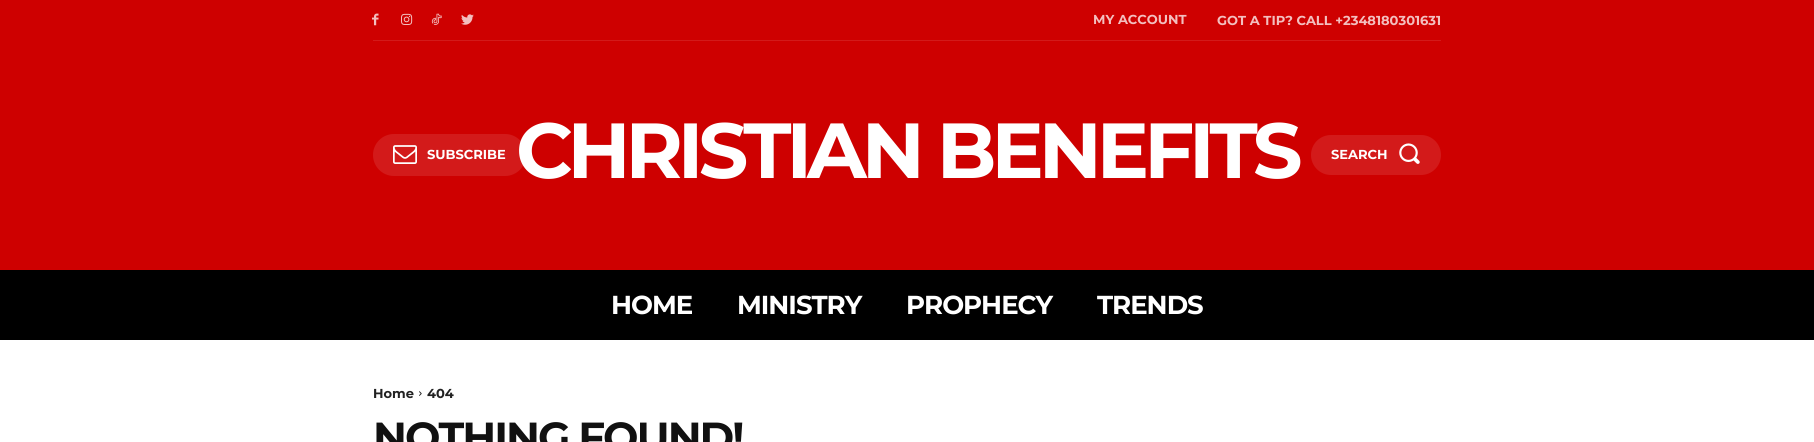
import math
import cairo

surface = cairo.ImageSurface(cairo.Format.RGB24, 1814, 442)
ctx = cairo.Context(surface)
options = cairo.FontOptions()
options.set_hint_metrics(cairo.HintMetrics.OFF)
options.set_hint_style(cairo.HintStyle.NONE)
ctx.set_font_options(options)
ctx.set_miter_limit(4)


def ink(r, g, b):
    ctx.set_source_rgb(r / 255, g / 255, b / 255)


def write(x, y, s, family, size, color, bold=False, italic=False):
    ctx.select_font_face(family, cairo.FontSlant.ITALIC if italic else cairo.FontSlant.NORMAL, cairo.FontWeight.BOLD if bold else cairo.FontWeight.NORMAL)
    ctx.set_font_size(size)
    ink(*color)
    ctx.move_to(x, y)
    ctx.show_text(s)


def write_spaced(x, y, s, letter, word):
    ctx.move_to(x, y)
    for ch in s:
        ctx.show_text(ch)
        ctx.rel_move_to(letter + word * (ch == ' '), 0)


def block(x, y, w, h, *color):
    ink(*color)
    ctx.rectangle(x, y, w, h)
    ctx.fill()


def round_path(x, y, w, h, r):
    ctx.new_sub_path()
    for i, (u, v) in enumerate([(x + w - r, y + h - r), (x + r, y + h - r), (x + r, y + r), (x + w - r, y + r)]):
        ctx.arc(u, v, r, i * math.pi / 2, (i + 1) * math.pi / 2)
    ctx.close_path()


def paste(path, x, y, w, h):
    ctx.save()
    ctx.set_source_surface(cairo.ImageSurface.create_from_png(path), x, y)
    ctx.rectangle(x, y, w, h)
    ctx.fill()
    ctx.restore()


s1 = dict(family="Montserrat", size=13, color=(243, 191, 191), bold=True)
s2 = dict(family="Montserrat", size=13, color=(255, 255, 255), bold=True)
s3 = dict(family="Montserrat", size=13, color=(34, 34, 34), bold=True)

ink(255, 255, 255)
ctx.paint()
block(0, 0, 1814, 270, 206, 0, 0)
block(373, 40, 1068, 1, 211, 26, 26)
paste("pic1.png", 372, 13, 7, 13)
paste("pic2.png", 401, 13, 12, 12)
paste("pic3.png", 431, 13, 11, 12)
paste("pic4.png", 461, 14, 13, 11)
write(1093, 24, "MY ACCOUNT", **s1)
write(1217, 25, "GOT A TIP? CALL +2348180301631", **s1)
ink(211, 26, 26)
round_path(373, 134, 153, 42, 21)
ctx.fill()
paste("pic5.png", 393, 145, 24, 19)
write(427, 159, "SUBSCRIBE", **s2)
ctx.set_font_size(78)
write_spaced(516, 178, "CHRISTIAN BENEFITS", -5, 0)
ink(211, 26, 26)
round_path(1311, 135, 130, 40, 20)
ctx.fill()
write(1331, 159, "SEARCH", **s2)
paste("pic6.png", 1399, 143, 21, 21)
block(0, 270, 1814, 70, 0, 0, 0)
ctx.set_font_size(26)
ink(255, 255, 255)
write_spaced(611, 314, "HOME", -1, 0)
write_spaced(737, 314, "MINISTRY", -1, 0)
write_spaced(906, 314, "PROPHECY", -1, 0)
write_spaced(1097, 314, "TRENDS", -1, 0)
write(373, 398, "Home", **s3)
paste("pic7.png", 419, 391, 3, 5)
write(427, 398, "404", **s3)
ctx.set_font_size(42)
ink(17, 17, 17)
write_spaced(373, 452, "NOTHING FOUND!", -2, 0)
surface.write_to_png("screenshot.png")
